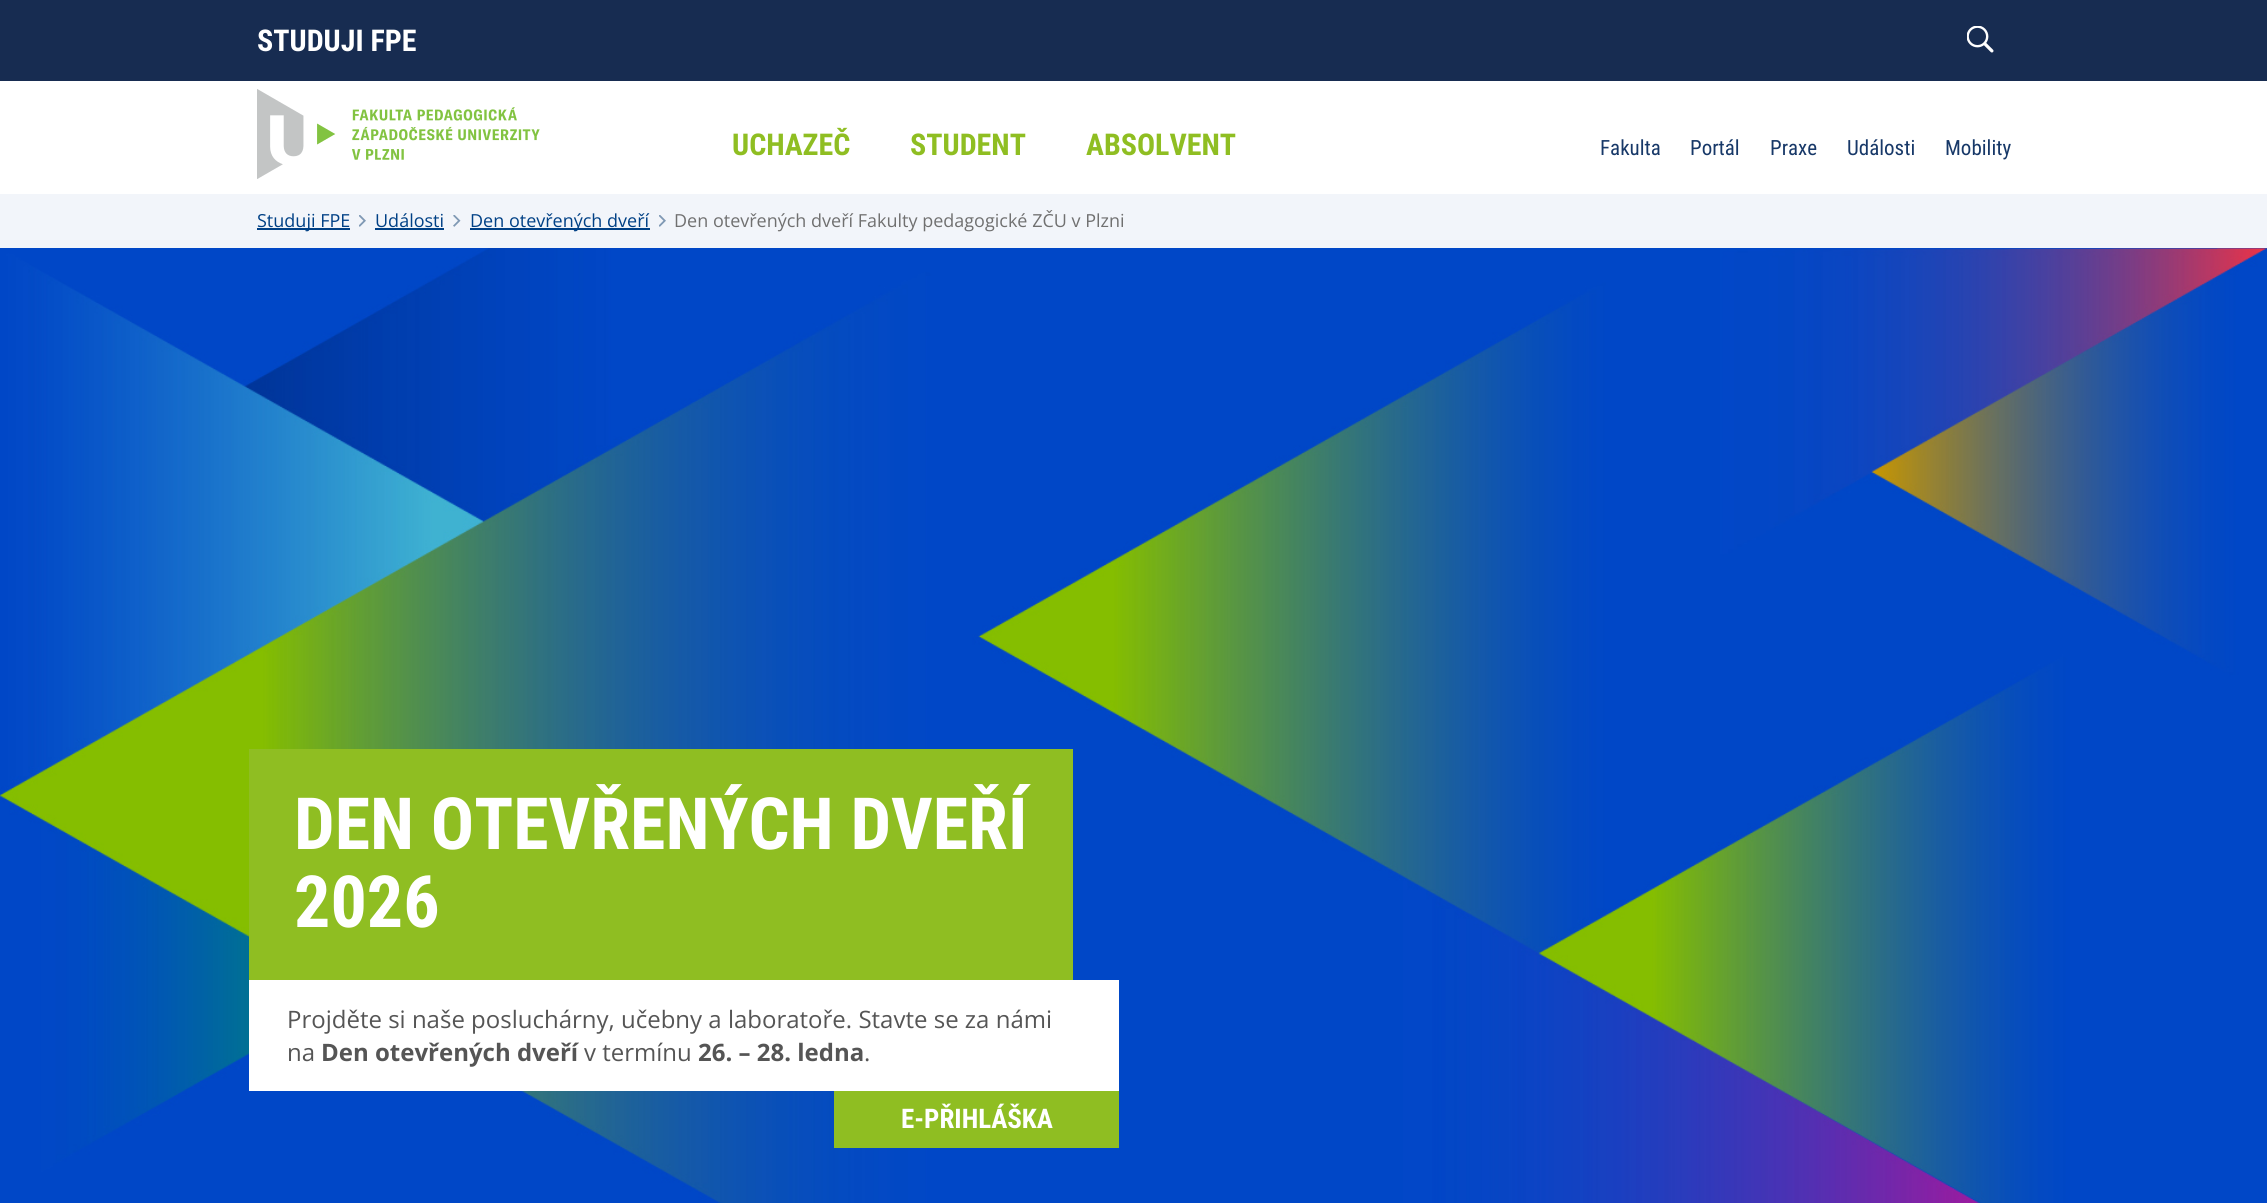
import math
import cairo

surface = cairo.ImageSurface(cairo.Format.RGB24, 2267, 1203)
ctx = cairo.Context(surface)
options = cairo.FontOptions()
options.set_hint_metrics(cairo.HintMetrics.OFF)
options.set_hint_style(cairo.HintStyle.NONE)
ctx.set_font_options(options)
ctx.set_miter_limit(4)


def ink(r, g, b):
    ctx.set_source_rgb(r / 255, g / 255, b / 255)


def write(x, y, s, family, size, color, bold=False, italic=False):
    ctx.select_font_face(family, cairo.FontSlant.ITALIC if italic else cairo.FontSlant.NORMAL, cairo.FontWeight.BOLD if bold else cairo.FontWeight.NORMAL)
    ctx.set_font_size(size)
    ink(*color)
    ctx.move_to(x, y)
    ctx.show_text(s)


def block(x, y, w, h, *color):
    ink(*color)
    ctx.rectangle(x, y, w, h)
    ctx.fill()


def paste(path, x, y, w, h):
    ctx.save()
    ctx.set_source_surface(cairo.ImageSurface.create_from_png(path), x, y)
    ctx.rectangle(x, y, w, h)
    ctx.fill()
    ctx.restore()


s1 = dict(family="Roboto Condensed", size=30, color=(255, 255, 255), bold=True)
s2 = dict(family="Roboto Condensed", size=30, color=(143, 190, 34), bold=True)
s3 = dict(family="Roboto Condensed", size=21, color=(23, 56, 104))
s4 = dict(family="Open Sans", size=18, color=(0, 64, 133))
s5 = dict(family="Open Sans", size=18, color=(112, 112, 112))
s6 = dict(family="Roboto Condensed", size=72, color=(255, 255, 255), bold=True)
s7 = dict(family="Open Sans", size=24, color=(85, 85, 85))
s8 = dict(family="Open Sans", size=24, color=(85, 85, 85), bold=True)
s9 = dict(family="Roboto Condensed", size=27, color=(255, 255, 255), bold=True)

ink(255, 255, 255)
ctx.paint()
block(0, 0, 2267, 81, 23, 44, 81)
write(257, 51, "STUDUJI FPE", **s1)
paste("pic1.png", 1967, 26, 27, 27)
paste("pic2.png", 257, 89, 283, 90)
write(732, 155, "UCHAZEČ", **s2)
write(910, 155, "STUDENT", **s2)
write(1086, 155, "ABSOLVENT", **s2)
write(1600, 155, "Fakulta", **s3)
write(1690, 155, "Portál", **s3)
write(1770, 155, "Praxe", **s3)
write(1847, 155, "Události", **s3)
write(1945, 155, "Mobility", **s3)
block(0, 194, 2267, 54, 242, 245, 250)
paste("pic3.png", 359, 215, 7, 12)
block(257, 228, 93, 2, 0, 64, 133)
write(257, 227, "Studuji FPE", **s4)
paste("pic4.png", 453, 215, 8, 12)
write(375, 227, "Události", **s4)
block(375, 228, 69, 2, 0, 64, 133)
paste("pic3.png", 659, 215, 7, 12)
block(470, 228, 180, 2, 0, 64, 133)
write(470, 227, "Den otevřených dveří", **s4)
write(674, 227, "Den otevřených dveří Fakulty pedagogické ZČU v Plzni", **s5)
paste("pic5.png", 0, 248, 2267, 955)
block(249, 749, 824, 231, 143, 190, 34)
write(294, 849, "DEN OTEVŘENÝCH DVEŘÍ", **s6)
write(294, 927, "2026", **s6)
block(249, 980, 870, 111, 255, 255, 255)
write(287, 1028, "Projděte si naše posluchárny, učebny a laboratoře. Stavte se za námi", **s7)
write(287, 1061, "na", **s7)
write(321, 1061, "Den otevřených dveří", **s8)
write(584, 1061, "v termínu", **s7)
write(698, 1061, "26. – 28. ledna", **s8)
write(864, 1061, ".", **s7)
block(834, 1091, 285, 57, 143, 190, 34)
write(901, 1128, "E-PŘIHLÁŠKA", **s9)
surface.write_to_png("screenshot.png")
